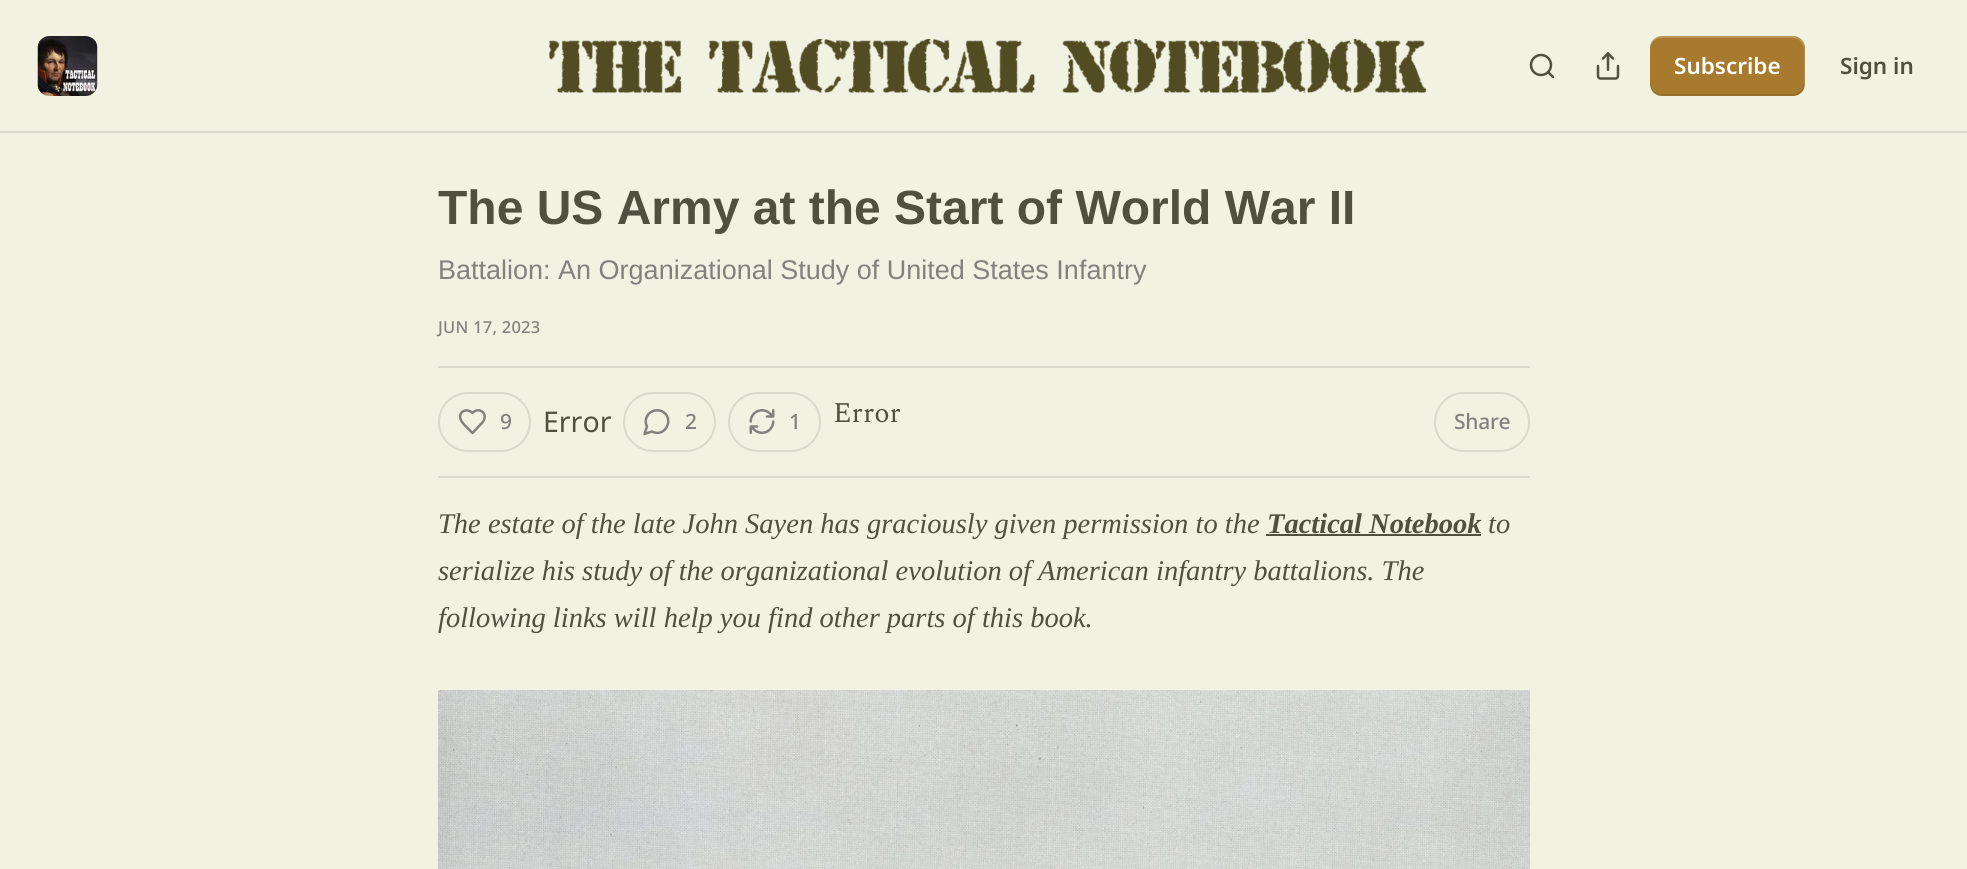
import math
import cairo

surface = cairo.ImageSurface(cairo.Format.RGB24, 1967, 869)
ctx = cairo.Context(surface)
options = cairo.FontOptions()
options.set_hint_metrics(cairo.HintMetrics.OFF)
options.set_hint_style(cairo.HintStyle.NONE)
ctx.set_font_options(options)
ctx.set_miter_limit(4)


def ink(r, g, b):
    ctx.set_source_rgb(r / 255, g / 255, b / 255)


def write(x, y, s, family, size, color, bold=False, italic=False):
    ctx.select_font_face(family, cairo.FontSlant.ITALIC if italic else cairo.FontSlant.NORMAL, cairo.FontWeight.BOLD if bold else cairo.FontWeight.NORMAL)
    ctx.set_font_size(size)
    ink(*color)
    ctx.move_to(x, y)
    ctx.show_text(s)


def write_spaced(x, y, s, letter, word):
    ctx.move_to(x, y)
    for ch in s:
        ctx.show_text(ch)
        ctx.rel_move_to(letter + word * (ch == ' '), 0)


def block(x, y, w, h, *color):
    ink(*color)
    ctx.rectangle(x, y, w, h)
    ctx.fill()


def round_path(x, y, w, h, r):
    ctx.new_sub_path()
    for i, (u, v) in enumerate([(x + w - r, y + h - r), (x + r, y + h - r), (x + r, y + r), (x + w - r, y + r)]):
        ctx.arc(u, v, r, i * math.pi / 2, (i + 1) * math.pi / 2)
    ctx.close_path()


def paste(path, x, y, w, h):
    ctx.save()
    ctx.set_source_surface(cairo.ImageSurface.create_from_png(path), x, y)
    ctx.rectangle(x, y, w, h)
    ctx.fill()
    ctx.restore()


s1 = dict(family="Noto Sans SemiBold", size=22.5, color=(255, 255, 255))
s2 = dict(family="Noto Sans SemiBold", size=22.5, color=(80, 80, 65))
s3 = dict(family="Liberation Sans", size=48, color=(80, 80, 65), bold=True)
s4 = dict(family="Liberation Sans", size=27, color=(129, 130, 124))
s5 = dict(family="Noto Sans", size=28.5, color=(80, 80, 65))
s6 = dict(family="Spectral", size=28.5, color=(80, 80, 65))
s7 = dict(family="Liberation Serif", size=28.5, color=(80, 80, 65), italic=True)
s8 = dict(family="Liberation Serif", size=28.5, color=(80, 80, 65), bold=True, italic=True)

ink(242, 242, 227)
ctx.paint()
block(0, 131, 1967, 2, 218, 218, 204)
ink(255, 255, 255)
round_path(38, 36, 60, 60, 12)
ctx.fill()
paste("pic1.png", 37, 36, 61, 60)
paste("pic2.png", 549, 39, 877, 54)
ctx.arc(1541, 65, 10, 0, 2 * math.pi)
ink(80, 80, 65)
ctx.set_line_width(2.5)
ctx.stroke()
ctx.new_path()
ctx.move_to(1553, 77)
ctx.line_to(1548, 72)
ctx.set_line_cap(cairo.LineCap.ROUND)
ctx.set_line_join(cairo.LineJoin.ROUND)
ctx.stroke()
paste("pic3.png", 1596, 52, 24, 28)
ink(168, 122, 45)
round_path(1650, 36, 155, 60, 12)
ctx.fill()
ctx.set_source_rgba(0, 0, 0, 0.1)
ctx.new_path()
ctx.move_to(1650, 82)
ctx.line_to(1650, 84)
ctx.curve_to(1650, 91, 1655, 96, 1662, 96)
ctx.line_to(1793, 96)
ctx.curve_to(1800, 96, 1805, 91, 1805, 84)
ctx.line_to(1805, 48)
ctx.curve_to(1805, 46, 1804, 43, 1803, 41)
ctx.line_to(1804, 46)
ctx.line_to(1804, 82)
ctx.curve_to(1804, 89, 1799, 94, 1792, 94)
ctx.line_to(1662, 94)
ctx.curve_to(1655, 94, 1650, 89, 1650, 82)
ctx.close_path()
ctx.fill()
ctx.set_source_rgba(1, 1, 1, 0.2)
ctx.new_path()
ctx.move_to(1662, 38)
ctx.line_to(1792, 38)
ctx.curve_to(1799, 38, 1804, 43, 1804, 50)
ctx.line_to(1804, 86)
ctx.line_to(1803, 91)
ctx.curve_to(1804, 89, 1805, 86, 1805, 84)
ctx.line_to(1805, 48)
ctx.curve_to(1805, 41, 1800, 36, 1793, 36)
ctx.line_to(1662, 36)
ctx.curve_to(1655, 36, 1650, 41, 1650, 48)
ctx.line_to(1650, 50)
ctx.curve_to(1650, 43, 1655, 38, 1662, 38)
ctx.close_path()
ctx.fill()
write(1674, 74, "Subscribe", **s1)
write(1840, 74, "Sign in", **s2)
write(438, 224, "The US Army at the Start of World War II", **s3)
write(438, 279, "Battalion: An Organizational Study of United States Infantry", **s4)
ctx.select_font_face("Noto Sans Medium")
ctx.set_font_size(16.5)
write_spaced(438, 333, "JUN 17, 2023", 0.25, 0)
block(438, 366, 1092, 2, 218, 218, 204)
block(438, 476, 1092, 2, 218, 218, 204)
round_path(439, 393, 91, 58, 29)
ctx.set_line_width(2)
ctx.set_line_cap(cairo.LineCap.BUTT)
ctx.set_line_join(cairo.LineJoin.MITER)
ctx.stroke()
ctx.new_path()
ctx.move_to(481, 424)
ctx.curve_to(490.5, 415, 479.5, 405.5, 472.5, 413)
ctx.curve_to(467, 407.5, 458, 411.5, 460.5, 419)
ctx.curve_to(461.5, 423, 469.5, 430, 472.5, 433)
ctx.close_path()
ink(129, 130, 124)
ctx.set_line_width(2.5)
ctx.set_line_cap(cairo.LineCap.ROUND)
ctx.set_line_join(cairo.LineJoin.ROUND)
ctx.stroke()
ctx.set_font_size(21)
write_spaced(500, 429, "9", -0.25, 0)
write(543, 432, "Error", **s5)
round_path(624, 393, 91, 58, 29)
ink(218, 218, 204)
ctx.set_line_width(2)
ctx.set_line_cap(cairo.LineCap.BUTT)
ctx.set_line_join(cairo.LineJoin.MITER)
ctx.stroke()
ctx.new_path()
ctx.move_to(652, 431.5)
ctx.curve_to(665.5, 438.5, 675.5, 417.5, 661.5, 411)
ctx.curve_to(658.5, 410, 655, 410, 652, 411.5)
ctx.curve_to(646.5, 414, 644, 421, 647, 426.5)
ctx.line_to(644.5, 434)
ctx.close_path()
ink(129, 130, 124)
ctx.set_line_width(2.5)
ctx.set_line_cap(cairo.LineCap.ROUND)
ctx.set_line_join(cairo.LineJoin.ROUND)
ctx.stroke()
ctx.select_font_face("Noto Sans Medium")
ctx.set_font_size(21)
write_spaced(685, 429, "2", -0.25, 0)
round_path(729, 393, 91, 58, 29)
ink(218, 218, 204)
ctx.set_line_width(2)
ctx.set_line_cap(cairo.LineCap.BUTT)
ctx.set_line_join(cairo.LineJoin.MITER)
ctx.stroke()
paste("pic4.png", 749, 409, 26, 25)
ink(129, 130, 124)
write_spaced(789, 429, "1", -0.25, 0)
write(833, 422, "Error", **s6)
round_path(1435, 393, 94, 58, 29)
ink(218, 218, 204)
ctx.stroke()
ctx.select_font_face("Noto Sans Medium")
ctx.set_font_size(21)
ink(129, 130, 124)
write_spaced(1454, 429, "Share", -0.25, 0)
write(438, 533, "The estate of the late John Sayen has graciously given permission to the", **s7)
write(1267, 533, "Tactical Notebook", **s8)
block(1266, 534, 215, 2, 80, 80, 65)
write(1488, 533, "to", **s7)
write(438, 580, "serialize his study of the organizational evolution of American infantry battalions. The", **s7)
write(438, 627, "following links will help you find other parts of this book.", **s7)
paste("pic5.png", 438, 690, 1092, 179)
surface.write_to_png("screenshot.png")
